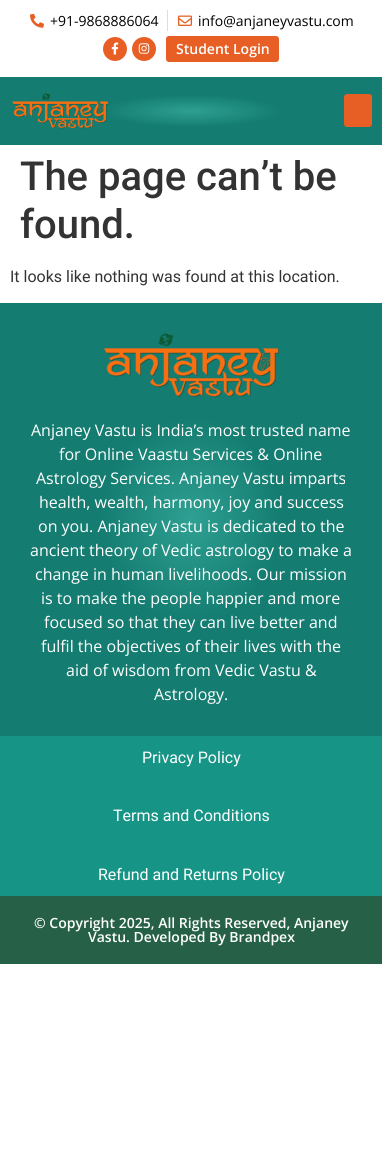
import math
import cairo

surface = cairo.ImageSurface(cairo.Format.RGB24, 382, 1174)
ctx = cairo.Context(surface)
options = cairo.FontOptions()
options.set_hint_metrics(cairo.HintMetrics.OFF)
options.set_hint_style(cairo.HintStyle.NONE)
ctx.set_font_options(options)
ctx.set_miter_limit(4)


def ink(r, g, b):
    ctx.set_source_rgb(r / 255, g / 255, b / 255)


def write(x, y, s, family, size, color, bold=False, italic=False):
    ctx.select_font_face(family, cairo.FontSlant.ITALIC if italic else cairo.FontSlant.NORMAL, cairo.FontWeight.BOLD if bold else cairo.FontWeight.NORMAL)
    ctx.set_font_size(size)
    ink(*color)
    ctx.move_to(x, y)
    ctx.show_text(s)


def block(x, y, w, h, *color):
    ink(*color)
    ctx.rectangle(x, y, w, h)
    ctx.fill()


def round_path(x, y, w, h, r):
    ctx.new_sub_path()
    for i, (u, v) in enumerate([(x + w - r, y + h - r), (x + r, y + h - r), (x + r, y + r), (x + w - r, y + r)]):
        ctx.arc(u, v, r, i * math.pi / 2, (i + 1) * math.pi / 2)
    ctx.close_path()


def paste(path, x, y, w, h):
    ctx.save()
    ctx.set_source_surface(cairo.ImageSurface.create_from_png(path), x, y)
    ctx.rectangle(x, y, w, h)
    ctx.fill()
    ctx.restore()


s1 = dict(family="Open Sans", size=14, color=(0, 0, 0))
s2 = dict(family="Open Sans SemiBold", size=14, color=(255, 255, 255))
s3 = dict(family="Roboto Medium", size=40, color=(51, 51, 51))
s4 = dict(family="Roboto", size=16, color=(51, 51, 51))
s5 = dict(family="Open Sans", size=16, color=(255, 255, 255))
s6 = dict(family="Roboto", size=16, color=(255, 255, 255))

ink(255, 255, 255)
ctx.paint()
paste("pic1.png", 30, 13, 14, 15)
write(50, 26, "+91-9868886064", **s1)
block(167, 10, 1, 21, 221, 221, 221)
paste("pic2.png", 178, 15, 14, 11)
write(198, 26, "info@anjaneyvastu.com", **s1)
ink(231, 95, 37)
ctx.new_path()
ctx.arc(115, 49, 12, 0, 2 * math.pi)
ctx.fill()
paste("pic3.png", 111, 42, 8, 13)
ctx.arc(144, 49, 12, 0, 2 * math.pi)
ctx.fill()
paste("pic4.png", 138, 43, 12, 11)
round_path(166, 36, 113, 26, 3)
ctx.fill()
write(176, 54, "Student Login", **s2)
gradient = cairo.RadialGradient(0, 0, 0, 0, 0, 1)
gradient.set_matrix(cairo.Matrix(1 / 270, 0, 0, 1 / 48, -1 * 191 / 270, -1 * 111 / 48))
gradient.add_color_stop_rgba(0, 0.18, 0.627, 0.576, 1)
gradient.add_color_stop_rgba(0.34, 0.078, 0.486, 0.439, 1)
ctx.set_source(gradient)
ctx.rectangle(0, 77, 382, 68)
ctx.fill()
paste("pic5.png", 12, 93, 97, 36)
ink(231, 95, 37)
round_path(344, 94, 28, 33, 3)
ctx.fill()
write(20, 190, "The page can’t be", **s3)
write(20, 238, "found.", **s3)
write(10, 282, "It looks like nothing was found at this location.", **s4)
gradient = cairo.RadialGradient(0, 0, 0, 0, 0, 1)
gradient.set_matrix(cairo.Matrix(1 / 270, 0, 0, 1 / 306, -1 * 191 / 270, -1 * 520 / 306))
gradient.add_color_stop_rgba(0, 0.18, 0.627, 0.576, 1)
gradient.add_color_stop_rgba(0.34, 0.078, 0.486, 0.439, 1)
ctx.set_source(gradient)
ctx.rectangle(0, 303, 382, 433)
ctx.fill()
paste("pic6.png", 103, 333, 176, 64)
write(31, 436, "Anjaney Vastu is India’s most trusted name", **s5)
write(59, 460, "for Online Vaastu Services & Online", **s5)
write(36, 484, "Astrology Services. Anjaney Vastu imparts", **s5)
write(39, 508, "health, wealth, harmony, joy and success", **s5)
write(38, 532, "on you. Anjaney Vastu is dedicated to the", **s5)
write(30, 556, "ancient theory of Vedic astrology to make a", **s5)
write(35, 580, "change in human livelihoods. Our mission", **s5)
write(41, 604, "is to make the people happier and more", **s5)
write(44, 628, "focused so that they can live better and", **s5)
write(41, 652, "fulfil the objectives of their lives with the", **s5)
write(66, 676, "aid of wisdom from Vedic Vastu &", **s5)
write(154, 700, "Astrology.", **s5)
block(0, 736, 382, 160, 22, 148, 134)
write(142, 763, "Privacy Policy", **s6)
write(113, 821, "Terms and Conditions", **s6)
write(98, 880, "Refund and Returns Policy", **s6)
block(0, 896, 382, 68, 38, 97, 71)
write(34, 928, "© Copyright 2025, All Rights Reserved, Anjaney", **s2)
write(88, 942, "Vastu. Developed By Brandpex", **s2)
surface.write_to_png("screenshot.png")
